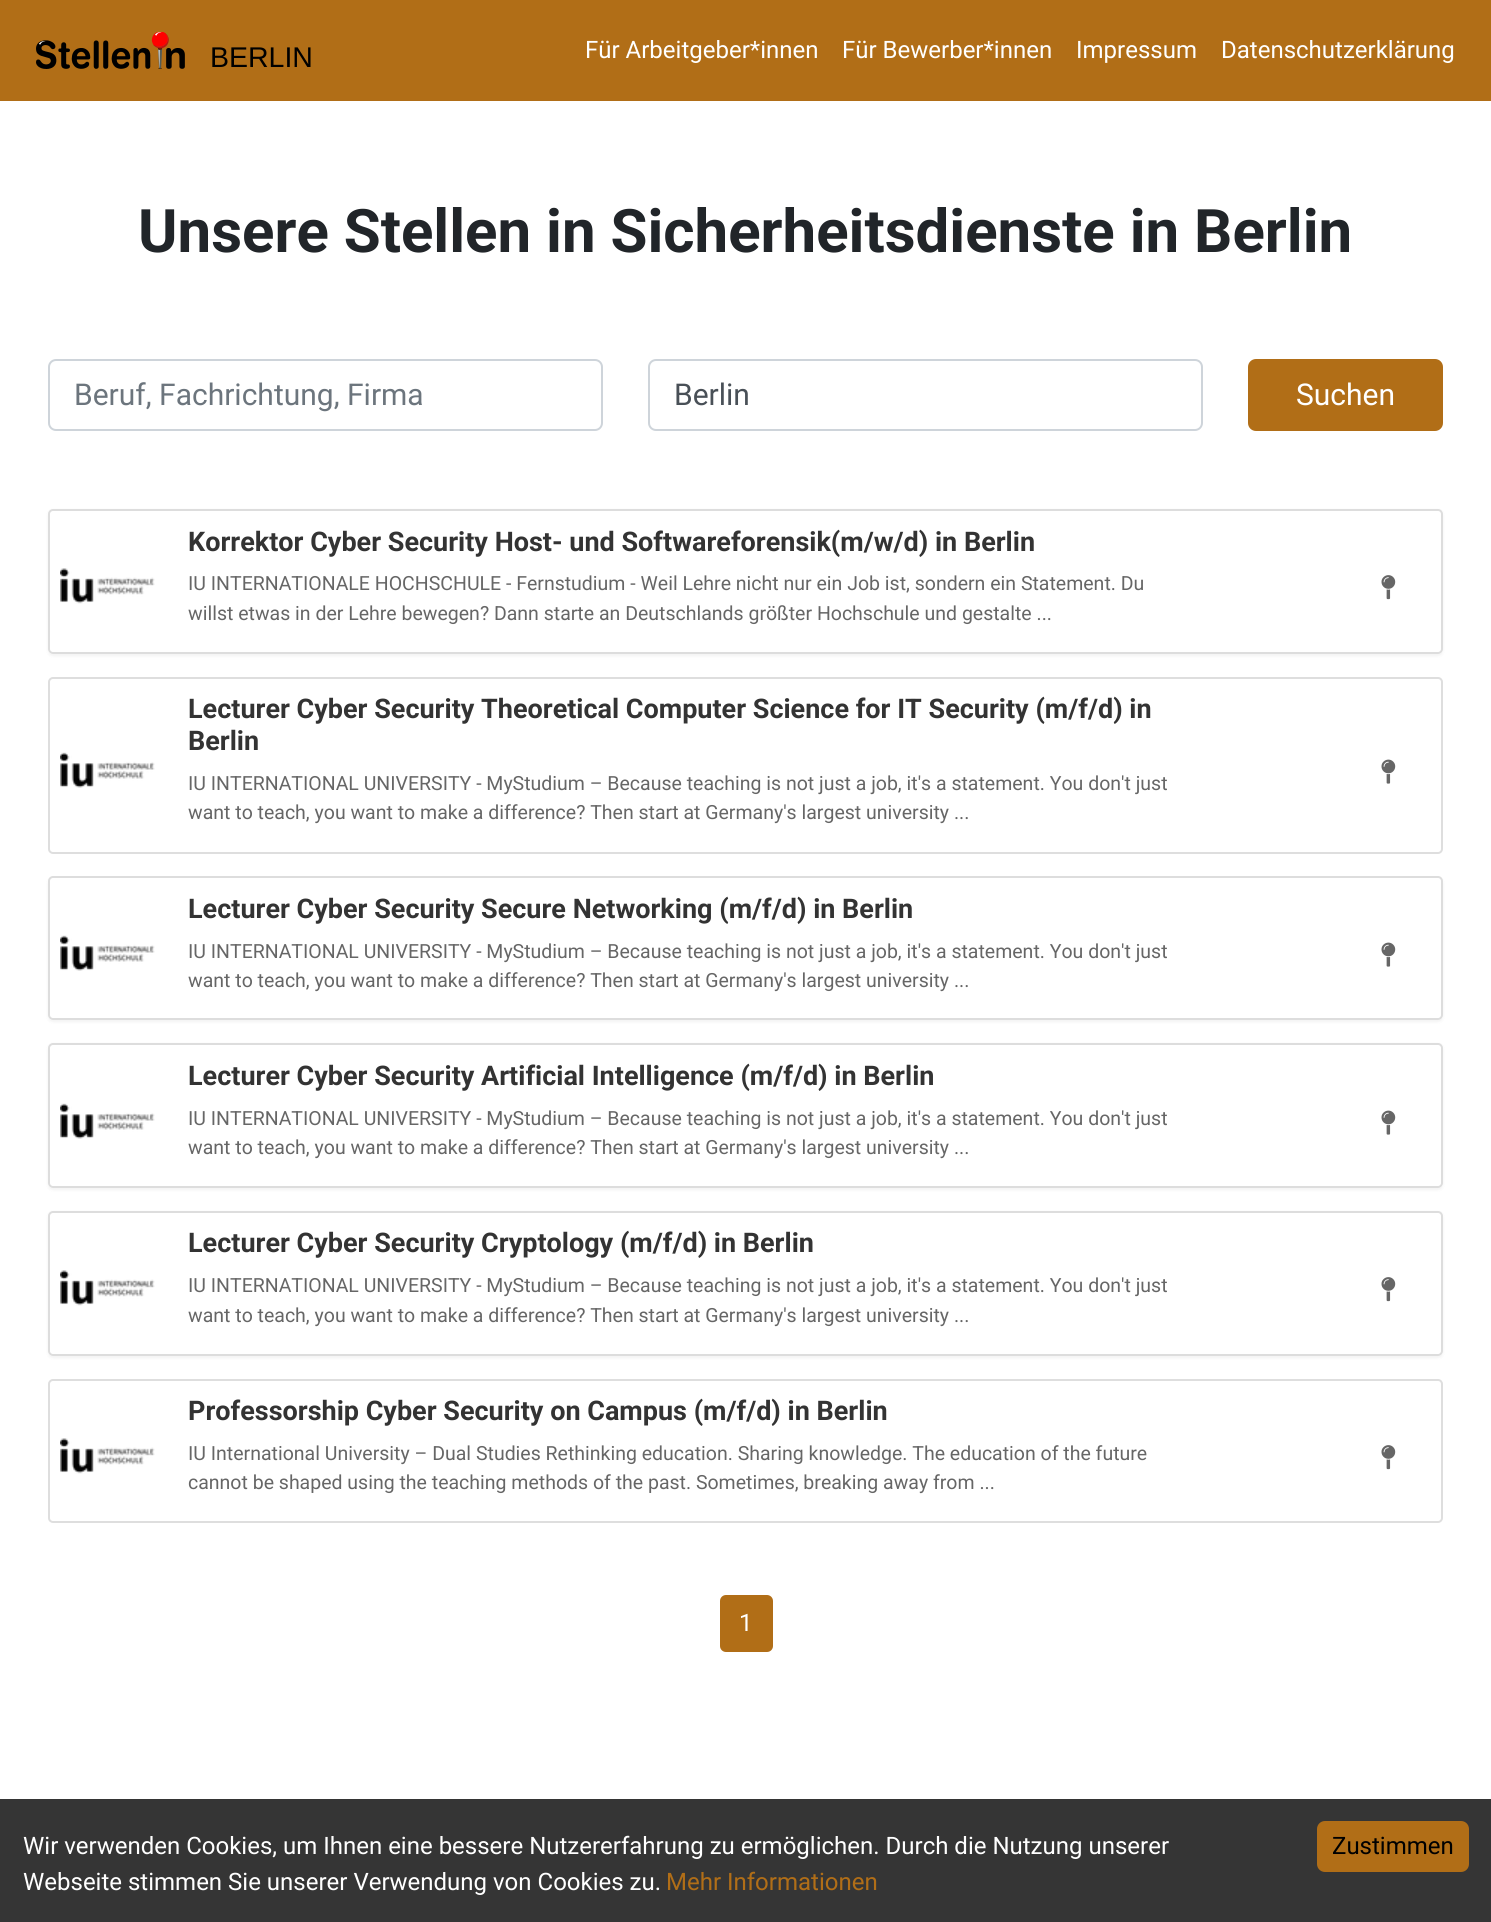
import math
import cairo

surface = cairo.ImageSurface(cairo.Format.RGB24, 1491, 1922)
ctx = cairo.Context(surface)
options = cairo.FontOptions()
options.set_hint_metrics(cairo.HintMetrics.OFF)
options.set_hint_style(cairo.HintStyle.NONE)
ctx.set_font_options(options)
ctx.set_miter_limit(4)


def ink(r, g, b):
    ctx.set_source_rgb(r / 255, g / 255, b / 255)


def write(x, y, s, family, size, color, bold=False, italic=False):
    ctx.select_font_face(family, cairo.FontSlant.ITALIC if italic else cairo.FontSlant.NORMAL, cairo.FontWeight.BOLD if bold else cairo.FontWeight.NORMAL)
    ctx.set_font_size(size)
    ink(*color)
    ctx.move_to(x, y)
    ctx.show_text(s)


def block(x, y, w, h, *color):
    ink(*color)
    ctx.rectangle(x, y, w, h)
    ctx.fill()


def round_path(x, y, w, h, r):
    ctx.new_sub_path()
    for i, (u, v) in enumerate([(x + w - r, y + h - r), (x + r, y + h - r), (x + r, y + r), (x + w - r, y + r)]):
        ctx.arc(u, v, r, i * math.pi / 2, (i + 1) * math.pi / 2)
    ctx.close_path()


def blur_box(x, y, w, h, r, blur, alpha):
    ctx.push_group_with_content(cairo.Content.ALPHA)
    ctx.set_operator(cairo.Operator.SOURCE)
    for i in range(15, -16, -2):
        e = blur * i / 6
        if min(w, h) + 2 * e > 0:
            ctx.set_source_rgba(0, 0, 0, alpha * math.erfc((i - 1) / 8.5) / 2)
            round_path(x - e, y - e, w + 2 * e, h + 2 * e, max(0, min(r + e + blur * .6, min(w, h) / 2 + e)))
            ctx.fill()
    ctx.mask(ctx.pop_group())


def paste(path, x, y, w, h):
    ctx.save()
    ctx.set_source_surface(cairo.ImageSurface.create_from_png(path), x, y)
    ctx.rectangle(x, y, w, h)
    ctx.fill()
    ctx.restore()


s1 = dict(family="Liberation Sans", size=28.5, color=(0, 0, 0))
s2 = dict(family="Roboto", size=24, color=(255, 255, 255))
s3 = dict(family="Roboto", size=24, color=(177, 110, 23))
s4 = dict(family="Roboto", size=24, color=(0, 0, 0))
s5 = dict(family="Roboto", size=60, color=(33, 37, 41), bold=True)
s6 = dict(family="Roboto", size=30, color=(108, 117, 125))
s7 = dict(family="Roboto", size=30, color=(73, 80, 87))
s8 = dict(family="Roboto", size=30, color=(255, 255, 255))
s9 = dict(family="Roboto", size=27, color=(51, 51, 51), bold=True)
s10 = dict(family="Roboto", size=19.5, color=(102, 102, 102))

ink(255, 255, 255)
ctx.paint()
block(0, 0, 1491, 101, 177, 110, 23)
paste("pic1.png", 36, 32, 149, 37)
write(210, 67, "BERLIN", **s1)
write(585, 58, "Für Arbeitgeber*innen", **s2)
write(842, 58, "Für Bewerber*innen", **s2)
write(1076, 58, "Impressum", **s2)
write(1221, 58, "Datenschutzerklärung", **s2)
block(0, 1799, 1491, 123, 53, 53, 53)
write(23, 1854, "Wir verwenden Cookies, um Ihnen eine bessere Nutzererfahrung zu ermöglichen. Durch die Nutzung unserer", **s2)
write(23, 1890, "Webseite stimmen Sie unserer Verwendung von Cookies zu.", **s2)
write(666, 1890, "Mehr Informationen", **s3)
round_path(1317, 1821, 152, 51, 8)
ctx.fill()
write(1332, 1854, "Zustimmen", **s4)
write(138, 252, "Unsere Stellen in Sicherheitsdienste in Berlin", **s5)
round_path(49, 360, 553, 70, 7)
ink(206, 212, 218)
ctx.stroke()
write(74, 405, "Beruf, Fachrichtung, Firma", **s6)
round_path(649, 360, 553, 70, 7)
ink(206, 212, 218)
ctx.stroke()
write(674, 405, "Berlin", **s7)
ink(177, 110, 23)
round_path(1249, 360, 193, 70, 7)
ctx.fill_preserve()
ctx.stroke()
write(1296, 405, "Suchen", **s8)
ctx.save()
ctx.set_fill_rule(cairo.FillRule.EVEN_ODD)
ctx.new_path()
ctx.move_to(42, 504)
ctx.line_to(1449, 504)
ctx.line_to(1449, 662)
ctx.line_to(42, 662)
ctx.close_path()
ctx.move_to(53, 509)
ctx.line_to(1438, 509)
ctx.curve_to(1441, 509, 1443, 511, 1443, 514)
ctx.line_to(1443, 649)
ctx.curve_to(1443, 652, 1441, 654, 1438, 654)
ctx.line_to(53, 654)
ctx.curve_to(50, 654, 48, 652, 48, 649)
ctx.line_to(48, 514)
ctx.curve_to(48, 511, 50, 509, 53, 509)
ctx.close_path()
ctx.clip()
ink(0, 0, 0)
blur_box(48, 510, 1395, 146, 5, 1.5, 0.05)
ctx.restore()
round_path(49, 510, 1393, 143, 4)
ink(221, 221, 221)
ctx.stroke()
paste("pic2.png", 60, 568, 95, 36)
write(188, 551, "Korrektor Cyber Security Host- und Softwareforensik(m/w/d) in Berlin", **s9)
write(188, 590, "IU INTERNATIONALE HOCHSCHULE - Fernstudium - Weil Lehre nicht nur ein Job ist, sondern ein Statement. Du", **s10)
write(188, 620, "willst etwas in der Lehre bewegen? Dann starte an Deutschlands größter Hochschule und gestalte ...", **s10)
paste("pic3.png", 1381, 575, 15, 25)
round_path(49, 678, 1393, 175, 4)
ctx.set_source_rgba(0, 0, 0, 0.13)
ctx.stroke()
paste("pic4.png", 60, 752, 95, 36)
write(188, 718, "Lecturer Cyber Security Theoretical Computer Science for IT Security (m/f/d) in", **s9)
write(188, 750, "Berlin", **s9)
write(188, 790, "IU INTERNATIONAL UNIVERSITY - MyStudium – Because teaching is not just a job, it's a statement. You don't just", **s10)
write(188, 819, "want to teach, you want to make a difference? Then start at Germany's largest university ...", **s10)
paste("pic5.png", 1381, 759, 15, 25)
ctx.save()
ctx.set_fill_rule(cairo.FillRule.EVEN_ODD)
ctx.new_path()
ctx.move_to(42, 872)
ctx.line_to(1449, 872)
ctx.line_to(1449, 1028)
ctx.line_to(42, 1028)
ctx.close_path()
ctx.move_to(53, 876)
ctx.line_to(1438, 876)
ctx.curve_to(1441, 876, 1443, 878, 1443, 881)
ctx.line_to(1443, 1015)
ctx.curve_to(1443, 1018, 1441, 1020, 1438, 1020)
ctx.line_to(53, 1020)
ctx.curve_to(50, 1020, 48, 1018, 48, 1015)
ctx.line_to(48, 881)
ctx.curve_to(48, 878, 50, 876, 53, 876)
ctx.close_path()
ctx.clip()
ink(0, 0, 0)
blur_box(48, 878, 1395, 144, 5, 1.5, 0.05)
ctx.restore()
round_path(49, 877, 1393, 142, 4)
ink(221, 221, 221)
ctx.stroke()
paste("pic4.png", 60, 935, 95, 36)
write(188, 918, "Lecturer Cyber Security Secure Networking (m/f/d) in Berlin", **s9)
write(188, 958, "IU INTERNATIONAL UNIVERSITY - MyStudium – Because teaching is not just a job, it's a statement. You don't just", **s10)
write(188, 987, "want to teach, you want to make a difference? Then start at Germany's largest university ...", **s10)
paste("pic5.png", 1381, 942, 15, 25)
ctx.save()
ctx.set_fill_rule(cairo.FillRule.EVEN_ODD)
ctx.new_path()
ctx.move_to(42, 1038)
ctx.line_to(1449, 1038)
ctx.line_to(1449, 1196)
ctx.line_to(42, 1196)
ctx.close_path()
ctx.move_to(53, 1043)
ctx.line_to(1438, 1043)
ctx.curve_to(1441, 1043, 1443, 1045, 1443, 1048)
ctx.line_to(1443, 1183)
ctx.curve_to(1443, 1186, 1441, 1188, 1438, 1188)
ctx.line_to(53, 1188)
ctx.curve_to(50, 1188, 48, 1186, 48, 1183)
ctx.line_to(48, 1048)
ctx.curve_to(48, 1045, 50, 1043, 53, 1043)
ctx.close_path()
ctx.clip()
ink(0, 0, 0)
blur_box(48, 1044, 1395, 146, 5, 1.5, 0.05)
ctx.restore()
round_path(49, 1044, 1393, 143, 4)
ink(221, 221, 221)
ctx.stroke()
paste("pic4.png", 60, 1103, 95, 36)
write(188, 1085, "Lecturer Cyber Security Artificial Intelligence (m/f/d) in Berlin", **s9)
write(188, 1125, "IU INTERNATIONAL UNIVERSITY - MyStudium – Because teaching is not just a job, it's a statement. You don't just", **s10)
write(188, 1154, "want to teach, you want to make a difference? Then start at Germany's largest university ...", **s10)
paste("pic5.png", 1381, 1110, 15, 25)
ctx.save()
ctx.set_fill_rule(cairo.FillRule.EVEN_ODD)
ctx.new_path()
ctx.move_to(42, 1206)
ctx.line_to(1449, 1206)
ctx.line_to(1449, 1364)
ctx.line_to(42, 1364)
ctx.close_path()
ctx.move_to(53, 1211)
ctx.line_to(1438, 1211)
ctx.curve_to(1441, 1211, 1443, 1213, 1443, 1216)
ctx.line_to(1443, 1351)
ctx.curve_to(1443, 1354, 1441, 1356, 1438, 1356)
ctx.line_to(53, 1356)
ctx.curve_to(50, 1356, 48, 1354, 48, 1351)
ctx.line_to(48, 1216)
ctx.curve_to(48, 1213, 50, 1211, 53, 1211)
ctx.close_path()
ctx.clip()
ink(0, 0, 0)
blur_box(48, 1212, 1395, 146, 5, 1.5, 0.05)
ctx.restore()
round_path(49, 1212, 1393, 143, 4)
ink(221, 221, 221)
ctx.stroke()
paste("pic2.png", 60, 1270, 95, 36)
write(188, 1252, "Lecturer Cyber Security Cryptology (m/f/d) in Berlin", **s9)
write(188, 1292, "IU INTERNATIONAL UNIVERSITY - MyStudium – Because teaching is not just a job, it's a statement. You don't just", **s10)
write(188, 1322, "want to teach, you want to make a difference? Then start at Germany's largest university ...", **s10)
paste("pic3.png", 1381, 1277, 15, 25)
round_path(49, 1380, 1393, 142, 4)
ctx.set_source_rgba(0, 0, 0, 0.13)
ctx.stroke()
paste("pic2.png", 60, 1438, 95, 36)
write(188, 1420, "Professorship Cyber Security on Campus (m/f/d) in Berlin", **s9)
write(188, 1460, "IU International University – Dual Studies Rethinking education. Sharing knowledge. The education of the future", **s10)
write(188, 1489, "cannot be shaped using the teaching methods of the past. Sometimes, breaking away from ...", **s10)
paste("pic3.png", 1381, 1445, 15, 25)
ink(177, 110, 23)
round_path(721, 1596, 51, 55, 5)
ctx.fill_preserve()
ctx.stroke()
write(739, 1631, "1", **s2)
surface.write_to_png("screenshot.png")
